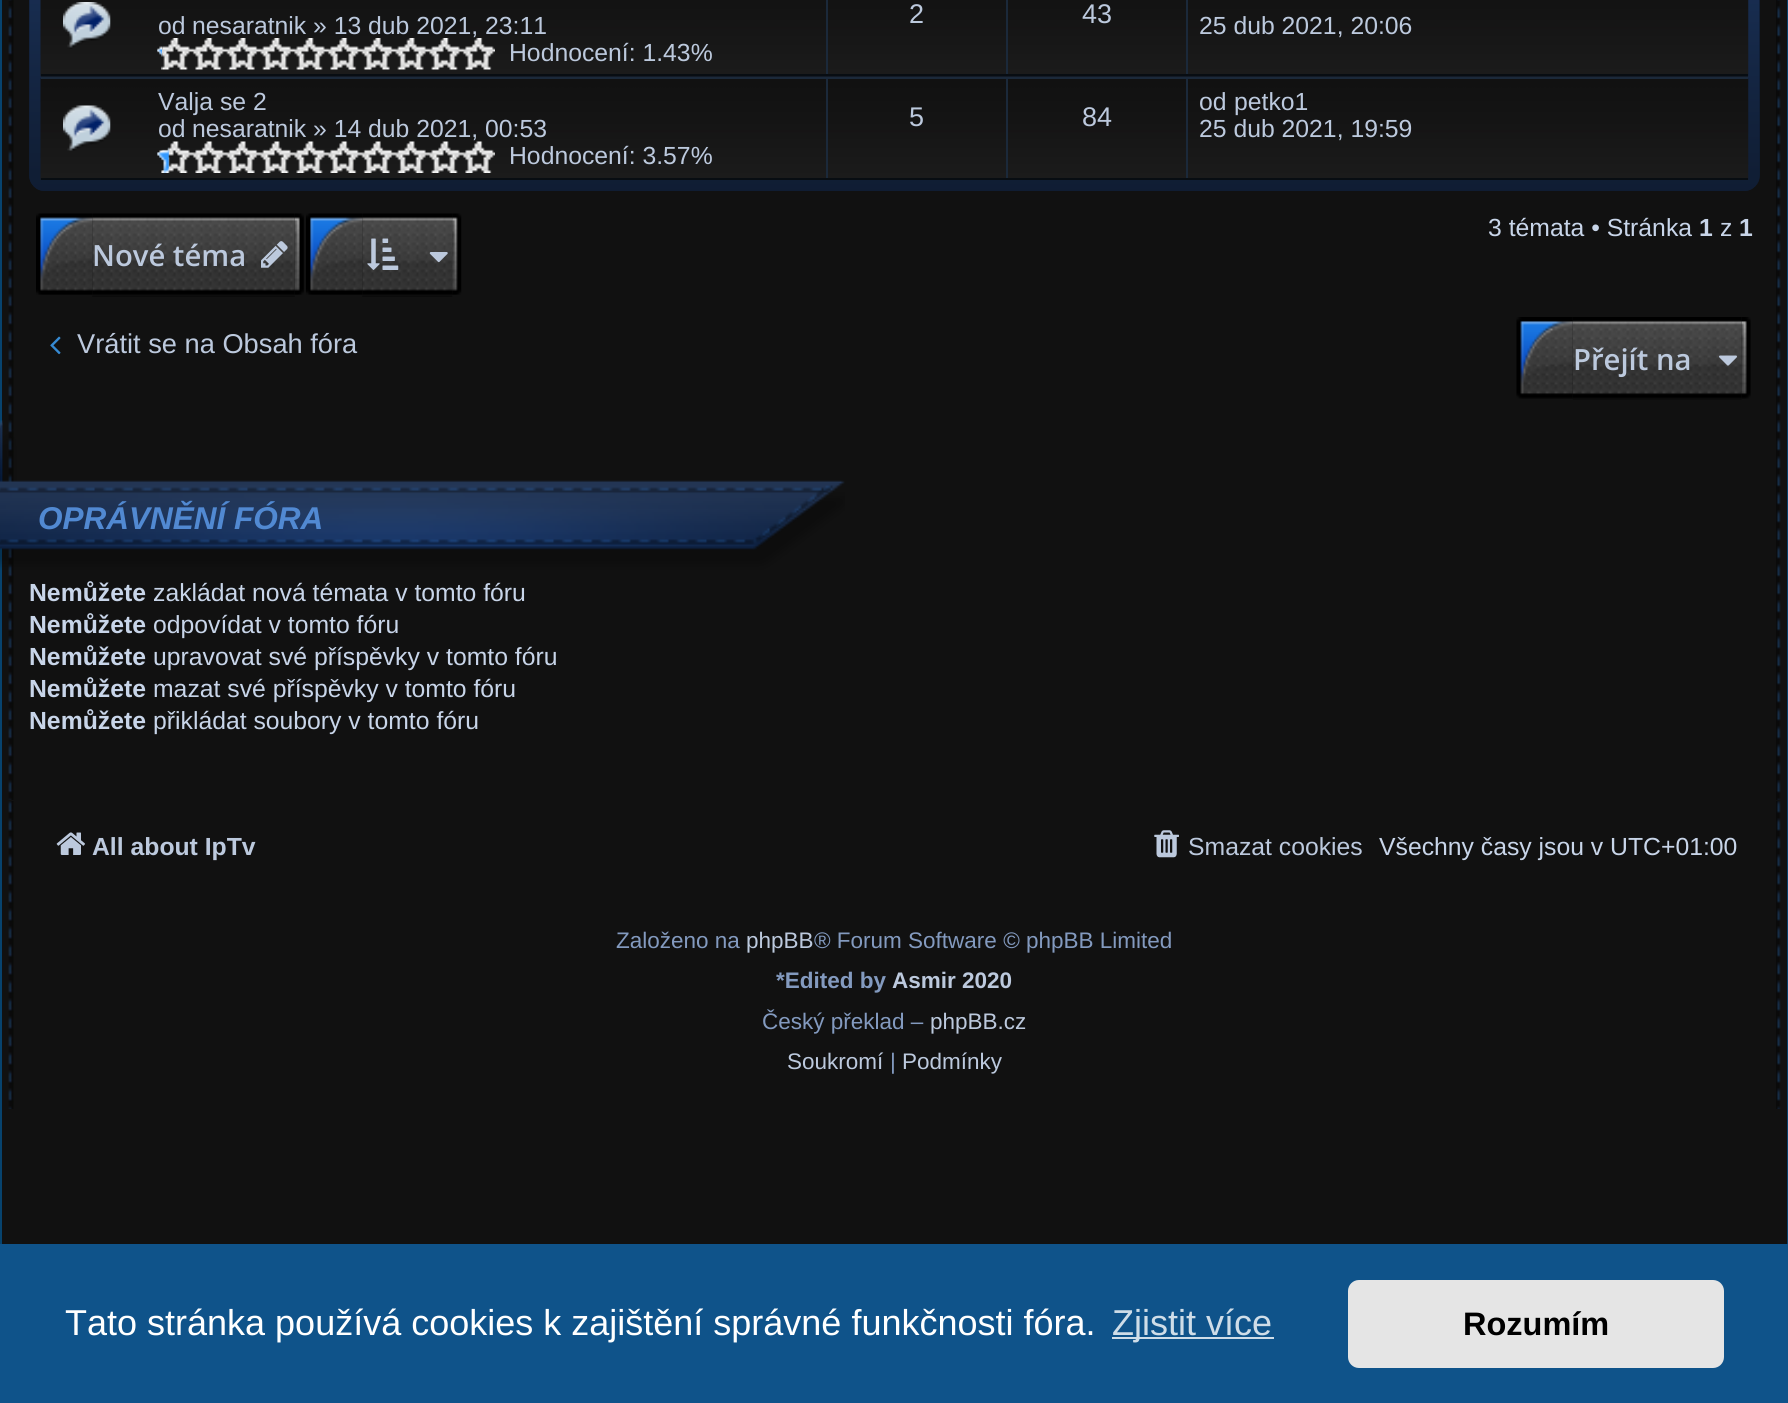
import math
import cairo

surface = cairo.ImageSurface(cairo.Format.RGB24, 1788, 1403)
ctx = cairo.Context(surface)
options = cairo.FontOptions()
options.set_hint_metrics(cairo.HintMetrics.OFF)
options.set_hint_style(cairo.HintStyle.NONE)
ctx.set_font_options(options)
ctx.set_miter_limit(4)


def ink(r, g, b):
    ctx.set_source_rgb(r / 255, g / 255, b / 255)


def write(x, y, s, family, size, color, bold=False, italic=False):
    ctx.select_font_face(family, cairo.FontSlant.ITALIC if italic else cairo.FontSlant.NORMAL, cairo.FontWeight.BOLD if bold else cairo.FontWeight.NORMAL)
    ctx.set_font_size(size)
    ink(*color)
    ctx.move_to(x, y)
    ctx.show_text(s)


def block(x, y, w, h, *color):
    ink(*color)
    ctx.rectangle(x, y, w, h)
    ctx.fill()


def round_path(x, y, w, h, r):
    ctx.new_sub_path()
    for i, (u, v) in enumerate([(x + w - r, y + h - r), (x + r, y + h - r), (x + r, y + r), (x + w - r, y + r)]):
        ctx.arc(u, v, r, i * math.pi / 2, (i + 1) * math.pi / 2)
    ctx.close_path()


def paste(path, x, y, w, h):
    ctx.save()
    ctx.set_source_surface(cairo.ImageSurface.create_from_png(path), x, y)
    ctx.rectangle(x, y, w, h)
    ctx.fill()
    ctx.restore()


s1 = dict(family="Liberation Sans", size=27, color=(188, 201, 221))
s2 = dict(family="Liberation Sans", size=24.75, color=(188, 201, 221))
s3 = dict(family="Liberation Sans", size=24.75, color=(200, 213, 233))
s4 = dict(family="Liberation Sans", size=24.75, color=(200, 213, 233), bold=True)
s5 = dict(family="Open Sans SemiBold", size=29.25, color=(188, 201, 221))
s6 = dict(family="Liberation Sans", size=27.25, color=(188, 201, 221))
s7 = dict(family="Liberation Sans", size=31.5, color=(81, 137, 210), bold=True, italic=True)
s8 = dict(family="Liberation Sans", size=24.75, color=(188, 201, 221), bold=True)
s9 = dict(family="Liberation Sans", size=22.5, color=(131, 154, 191))
s10 = dict(family="Liberation Sans", size=22.5, color=(188, 201, 221))
s11 = dict(family="Liberation Sans", size=22.5, color=(131, 154, 191), bold=True)
s12 = dict(family="Liberation Sans", size=22.5, color=(188, 201, 221), bold=True)
s13 = dict(family="Liberation Sans", size=36, color=(255, 255, 255))
s14 = dict(family="Liberation Sans", size=36, color=(207, 221, 232))
s15 = dict(family="Liberation Sans", size=32.5, color=(0, 0, 0), bold=True)

ink(7, 67, 110)
ctx.paint()
block(2, 0, 1785, 1244, 17, 17, 17)
paste("pic1.png", 8, 0, 6, 800)
ink(15, 28, 49)
round_path(29, -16, 1731, 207, 16)
ctx.fill()
paste("pic2.png", 29, 0, 1731, 191)
block(41, 76, 1707, 1, 16, 25, 40)
paste("pic3.png", 40, 0, 1709, 77)
block(41, 74, 1707, 2, 8, 13, 18)
paste("pic4.png", 63, 2, 48, 47)
block(826, 0, 2, 74, 27, 41, 58)
write(909, 23, "2", **s1)
block(1006, 0, 2, 74, 27, 41, 58)
write(1082, 23, "43", **s1)
write(158, 34, "od", **s2)
write(192, 34, "nesaratnik", **s2)
write(313, 34, "» 13 dub 2021, 23:11", **s2)
paste("pic5.png", 157, 38, 338, 32)
paste("pic6.png", 157, 46, 5, 24)
write(509, 61, "Hodnocení: 1.43%", **s2)
block(1186, 0, 2, 74, 27, 41, 58)
write(1199, 34, "25 dub 2021, 20:06", **s2)
paste("pic7.png", 40, 78, 1709, 102)
block(41, 77, 1707, 2, 27, 41, 58)
block(41, 178, 1707, 2, 8, 13, 18)
paste("pic8.png", 63, 105, 48, 46)
write(158, 110, "Valja se 2", **s2)
write(158, 137, "od", **s2)
write(192, 137, "nesaratnik", **s2)
write(313, 137, "» 14 dub 2021, 00:53", **s2)
paste("pic9.png", 157, 141, 338, 32)
paste("pic10.png", 157, 147, 12, 26)
write(509, 164, "Hodnocení: 3.57%", **s2)
block(826, 79, 2, 99, 27, 41, 58)
write(909, 126, "5", **s1)
block(1006, 79, 2, 99, 27, 41, 58)
write(1082, 126, "84", **s1)
block(1186, 79, 2, 99, 27, 41, 58)
write(1199, 110, "od", **s2)
write(1234, 110, "petko1", **s2)
write(1199, 137, "25 dub 2021, 19:59", **s2)
paste("pic11.png", 1776, 0, 5, 800)
paste("pic12.png", 362, 213, 91, 84)
paste("pic13.png", 306, 213, 57, 82)
paste("pic14.png", 367, 238, 32, 32)
paste("pic15.png", 429, 252, 19, 11)
paste("pic16.png", 452, 213, 10, 82)
write(1488, 236, "3 témata • Stránka", **s3)
write(1699, 236, "1", **s4)
write(1720, 236, "z", **s3)
write(1739, 236, "1", **s4)
paste("pic17.png", 92, 213, 203, 84)
paste("pic13.png", 36, 213, 57, 82)
write(92, 266, "Nové téma", **s5)
paste("pic18.png", 261, 241, 27, 27)
paste("pic19.png", 294, 213, 10, 82)
paste("pic20.png", 50, 336, 11, 19)
write(77, 353, "Vrátit se na Obsah fóra", **s6)
paste("pic21.png", 1572, 317, 170, 83)
paste("pic22.png", 1516, 317, 57, 82)
write(1573, 370, "Přejít na", **s5)
paste("pic23.png", 1719, 355, 18, 11)
paste("pic24.png", 1741, 317, 10, 82)
paste("pic25.png", 0, 420, 845, 150)
write(38, 529, "OPRÁVNĚNÍ FÓRA", **s7)
write(29, 601, "Nemůžete", **s4)
write(153, 601, "zakládat nová témata v tomto fóru", **s3)
write(29, 633, "Nemůžete", **s4)
write(153, 633, "odpovídat v tomto fóru", **s3)
write(29, 665, "Nemůžete", **s4)
write(153, 665, "upravovat své příspěvky v tomto fóru", **s3)
write(29, 697, "Nemůžete", **s4)
write(153, 697, "mazat své příspěvky v tomto fóru", **s3)
write(29, 729, "Nemůžete", **s4)
write(153, 729, "přikládat soubory v tomto fóru", **s3)
paste("pic26.png", 8, 801, 6, 308)
paste("pic27.png", 56, 832, 29, 23)
write(92, 855, "All about IpTv", **s8)
paste("pic28.png", 1154, 830, 25, 28)
write(1188, 855, "Smazat cookies", **s2)
write(1379, 855, "Všechny časy jsou v UTC+01:00", **s3)
paste("pic29.png", 1776, 801, 5, 308)
write(616, 948, "Založeno na", **s9)
write(746, 948, "phpBB", **s10)
write(814, 948, "® Forum Software © phpBB Limited", **s9)
write(776, 988, "*Edited by", **s11)
write(892, 988, "Asmir 2020", **s12)
write(762, 1029, "Český překlad –", **s9)
write(930, 1029, "phpBB.cz", **s10)
write(787, 1069, "Soukromí", **s10)
write(890, 1069, "|", **s9)
write(902, 1069, "Podmínky", **s10)
block(0, 1244, 1788, 159, 15, 83, 138)
write(65, 1335, "Tato stránka používá cookies k zajištění správné funkčnosti fóra.", **s13)
block(1112, 1337, 162, 2, 207, 221, 232)
write(1112, 1335, "Zjistit více", **s14)
ink(229, 229, 229)
round_path(1348, 1280, 376, 88, 11)
ctx.fill()
write(1463, 1335, "Rozumím", **s15)
surface.write_to_png("screenshot.png")
